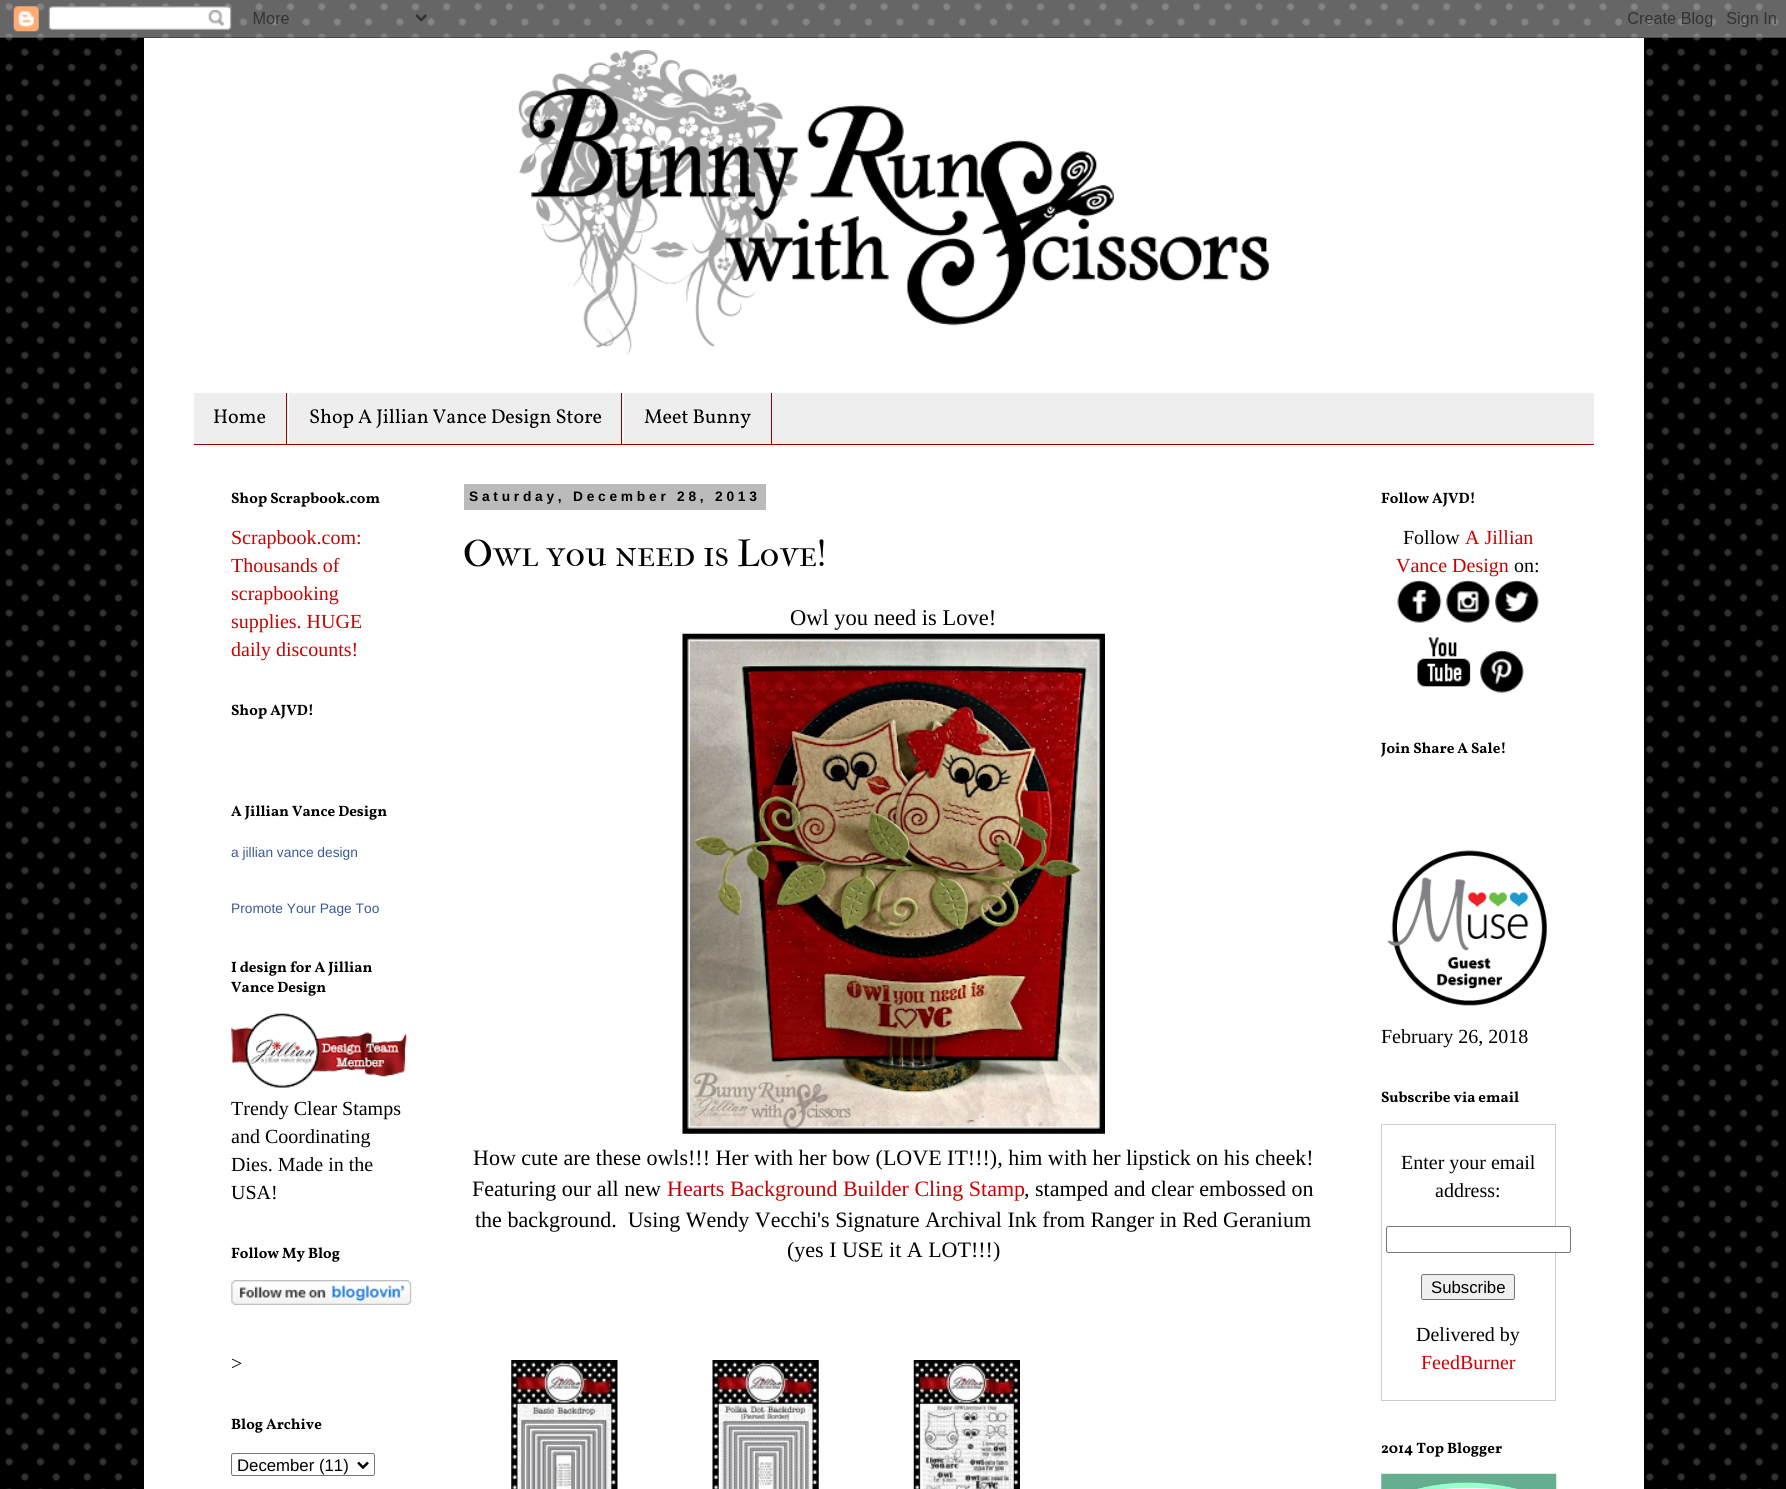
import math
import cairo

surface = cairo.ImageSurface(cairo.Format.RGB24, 1786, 1489)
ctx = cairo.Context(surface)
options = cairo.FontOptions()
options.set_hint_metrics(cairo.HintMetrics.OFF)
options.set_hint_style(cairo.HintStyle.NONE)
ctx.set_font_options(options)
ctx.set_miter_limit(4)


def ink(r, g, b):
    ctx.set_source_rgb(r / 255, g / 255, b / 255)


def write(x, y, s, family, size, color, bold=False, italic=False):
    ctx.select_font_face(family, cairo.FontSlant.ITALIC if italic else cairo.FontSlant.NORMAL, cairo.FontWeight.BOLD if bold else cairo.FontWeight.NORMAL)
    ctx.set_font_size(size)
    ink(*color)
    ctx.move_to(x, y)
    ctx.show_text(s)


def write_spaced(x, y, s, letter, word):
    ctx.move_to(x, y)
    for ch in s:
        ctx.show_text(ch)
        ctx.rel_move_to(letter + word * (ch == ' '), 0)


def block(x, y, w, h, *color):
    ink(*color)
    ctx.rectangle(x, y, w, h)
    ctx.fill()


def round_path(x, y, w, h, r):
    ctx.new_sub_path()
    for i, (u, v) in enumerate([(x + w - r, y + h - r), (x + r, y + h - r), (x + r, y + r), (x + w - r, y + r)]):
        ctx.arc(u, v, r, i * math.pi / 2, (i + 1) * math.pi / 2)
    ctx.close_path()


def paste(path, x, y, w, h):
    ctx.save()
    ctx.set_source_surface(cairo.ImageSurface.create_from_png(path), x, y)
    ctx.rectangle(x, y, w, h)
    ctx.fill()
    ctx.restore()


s1 = dict(family="Vollkorn", size=20, color=(0, 0, 0))
s2 = dict(family="Vollkorn", size=15, color=(0, 0, 0), bold=True)
s3 = dict(family="Liberation Serif", size=20, color=(204, 0, 0))
s4 = dict(family="Liberation Sans", size=13.75, color=(59, 89, 152))
s5 = dict(family="Liberation Serif", size=20, color=(0, 0, 0))
s6 = dict(family="Liberation Sans", size=16.75, color=(0, 0, 0))
s7 = dict(family="IM FELL French Canon SC", size=37.5, color=(0, 0, 0))
s8 = dict(family="Liberation Serif", size=22.5, color=(0, 0, 0))
s9 = dict(family="Liberation Serif", size=22, color=(0, 0, 0))
s10 = dict(family="Liberation Serif", size=22, color=(204, 0, 0))

ink(0, 0, 0)
ctx.paint()
paste("pic1.png", 5, 2, 1774, 1487)
paste("pic2.png", 0, 0, 1786, 38)
block(144, 38, 1500, 1451, 255, 255, 255)
paste("pic3.png", 518, 50, 751, 305)
block(194, 393, 1400, 51, 238, 238, 238)
block(194, 444, 1400, 1, 153, 0, 0)
block(286, 393, 1, 51, 153, 0, 0)
write(213, 423, "Home", **s1)
block(621, 393, 1, 51, 153, 0, 0)
block(288, 393, 1, 51, 255, 255, 255)
write(309, 423, "Shop A Jillian Vance Design Store", **s1)
block(771, 393, 1, 51, 153, 0, 0)
block(623, 393, 1, 51, 255, 255, 255)
write(644, 423, "Meet Bunny", **s1)
write(231, 503, "Shop Scrapbook.com", **s2)
write(231, 544, "Scrapbook.com:", **s3)
write(231, 572, "Thousands of", **s3)
write(231, 600, "scrapbooking", **s3)
write(231, 628, "supplies. HUGE", **s3)
write(231, 656, "daily discounts!", **s3)
write(231, 715, "Shop AJVD!", **s2)
write(231, 816, "A Jillian Vance Design", **s2)
write(231, 857, "a jillian vance design", **s4)
write(231, 913, "Promote Your Page Too", **s4)
write(231, 972, "I design for A Jillian", **s2)
write(231, 992, "Vance Design", **s2)
paste("pic4.png", 231, 1013, 176, 75)
write(231, 1115, "Trendy Clear Stamps", **s5)
write(231, 1143, "and Coordinating", **s5)
write(231, 1171, "Dies. Made in the", **s5)
write(231, 1199, "USA!", **s5)
write(231, 1258, "Follow My Blog", **s2)
paste("pic5.png", 231, 1280, 181, 25)
write(231, 1370, ">", **s5)
write(231, 1429, "Blog Archive", **s2)
round_path(231.5, 1453.5, 143, 22, 2)
ink(118, 118, 118)
ctx.set_line_width(1)
ctx.stroke()
ctx.new_path()
ctx.move_to(358, 1462.5)
ctx.line_to(363, 1467.5)
ctx.line_to(368, 1462.5)
ink(0, 0, 0)
ctx.set_line_width(2.5)
ctx.stroke()
write(237, 1471, "December (11)", **s6)
block(464, 484, 302, 26, 187, 187, 187)
ctx.select_font_face("Liberation Sans", cairo.FontSlant.NORMAL, cairo.FontWeight.BOLD)
ctx.set_font_size(13.75)
ink(0, 0, 0)
write_spaced(469, 501, "Saturday, December 28, 2013", 3.75, 0)
write(463, 566, "Owl you need is Love!", **s7)
write(790, 625, "Owl you need is Love!", **s8)
paste("pic6.png", 682, 633, 423, 501)
write(473, 1165, "How cute are these owls!!! Her with her bow (LOVE IT!!!), him with her lipstick on his cheek!", **s9)
write(472, 1196, "Featuring our all new", **s9)
write(667, 1196, "Hearts Background Builder Cling Stamp", **s10)
write(1024, 1196, ", stamped and clear embossed on", **s9)
write(475, 1227, "the background.  Using Wendy Vecchi's Signature Archival Ink from Ranger in Red Geranium", **s9)
write(787, 1257, "(yes I USE it A LOT!!!)", **s9)
paste("pic7.png", 511, 1360, 107, 129)
paste("pic8.png", 712, 1360, 107, 129)
paste("pic9.png", 913, 1360, 107, 129)
write(1381, 503, "Follow AJVD!", **s2)
write(1403, 544, "Follow", **s5)
write(1465, 544, "A Jillian", **s3)
write(1396, 572, "Vance Design", **s3)
write(1514, 572, "on:", **s5)
paste("pic10.png", 1397, 580, 45, 43)
paste("pic11.png", 1446, 580, 44, 43)
paste("pic12.png", 1495, 580, 44, 43)
paste("pic13.png", 1417, 637, 54, 50)
paste("pic14.png", 1480, 650, 44, 43)
write(1381, 753, "Join Share A Sale!", **s2)
paste("pic15.png", 1387, 850, 160, 156)
write(1381, 1043, "February 26, 2018", **s5)
write(1381, 1102, "Subscribe via email", **s2)
ctx.rectangle(1381.5, 1124.5, 174, 276)
ink(204, 204, 204)
ctx.set_line_width(1)
ctx.stroke()
write(1401, 1169, "Enter your email", **s5)
write(1435, 1197, "address:", **s5)
ink(255, 255, 255)
round_path(1386.5, 1226.5, 184, 26, 2)
ctx.fill_preserve()
ink(118, 118, 118)
ctx.stroke()
ink(239, 239, 239)
round_path(1421.5, 1274.5, 93, 25, 2)
ctx.fill_preserve()
ink(118, 118, 118)
ctx.stroke()
write(1431, 1293, "Subscribe", **s6)
write(1416, 1341, "Delivered by", **s5)
write(1421, 1369, "FeedBurner", **s3)
write(1381, 1453, "2014 Top Blogger", **s2)
paste("pic16.png", 1381, 1473, 176, 16)
surface.write_to_png("screenshot.png")
